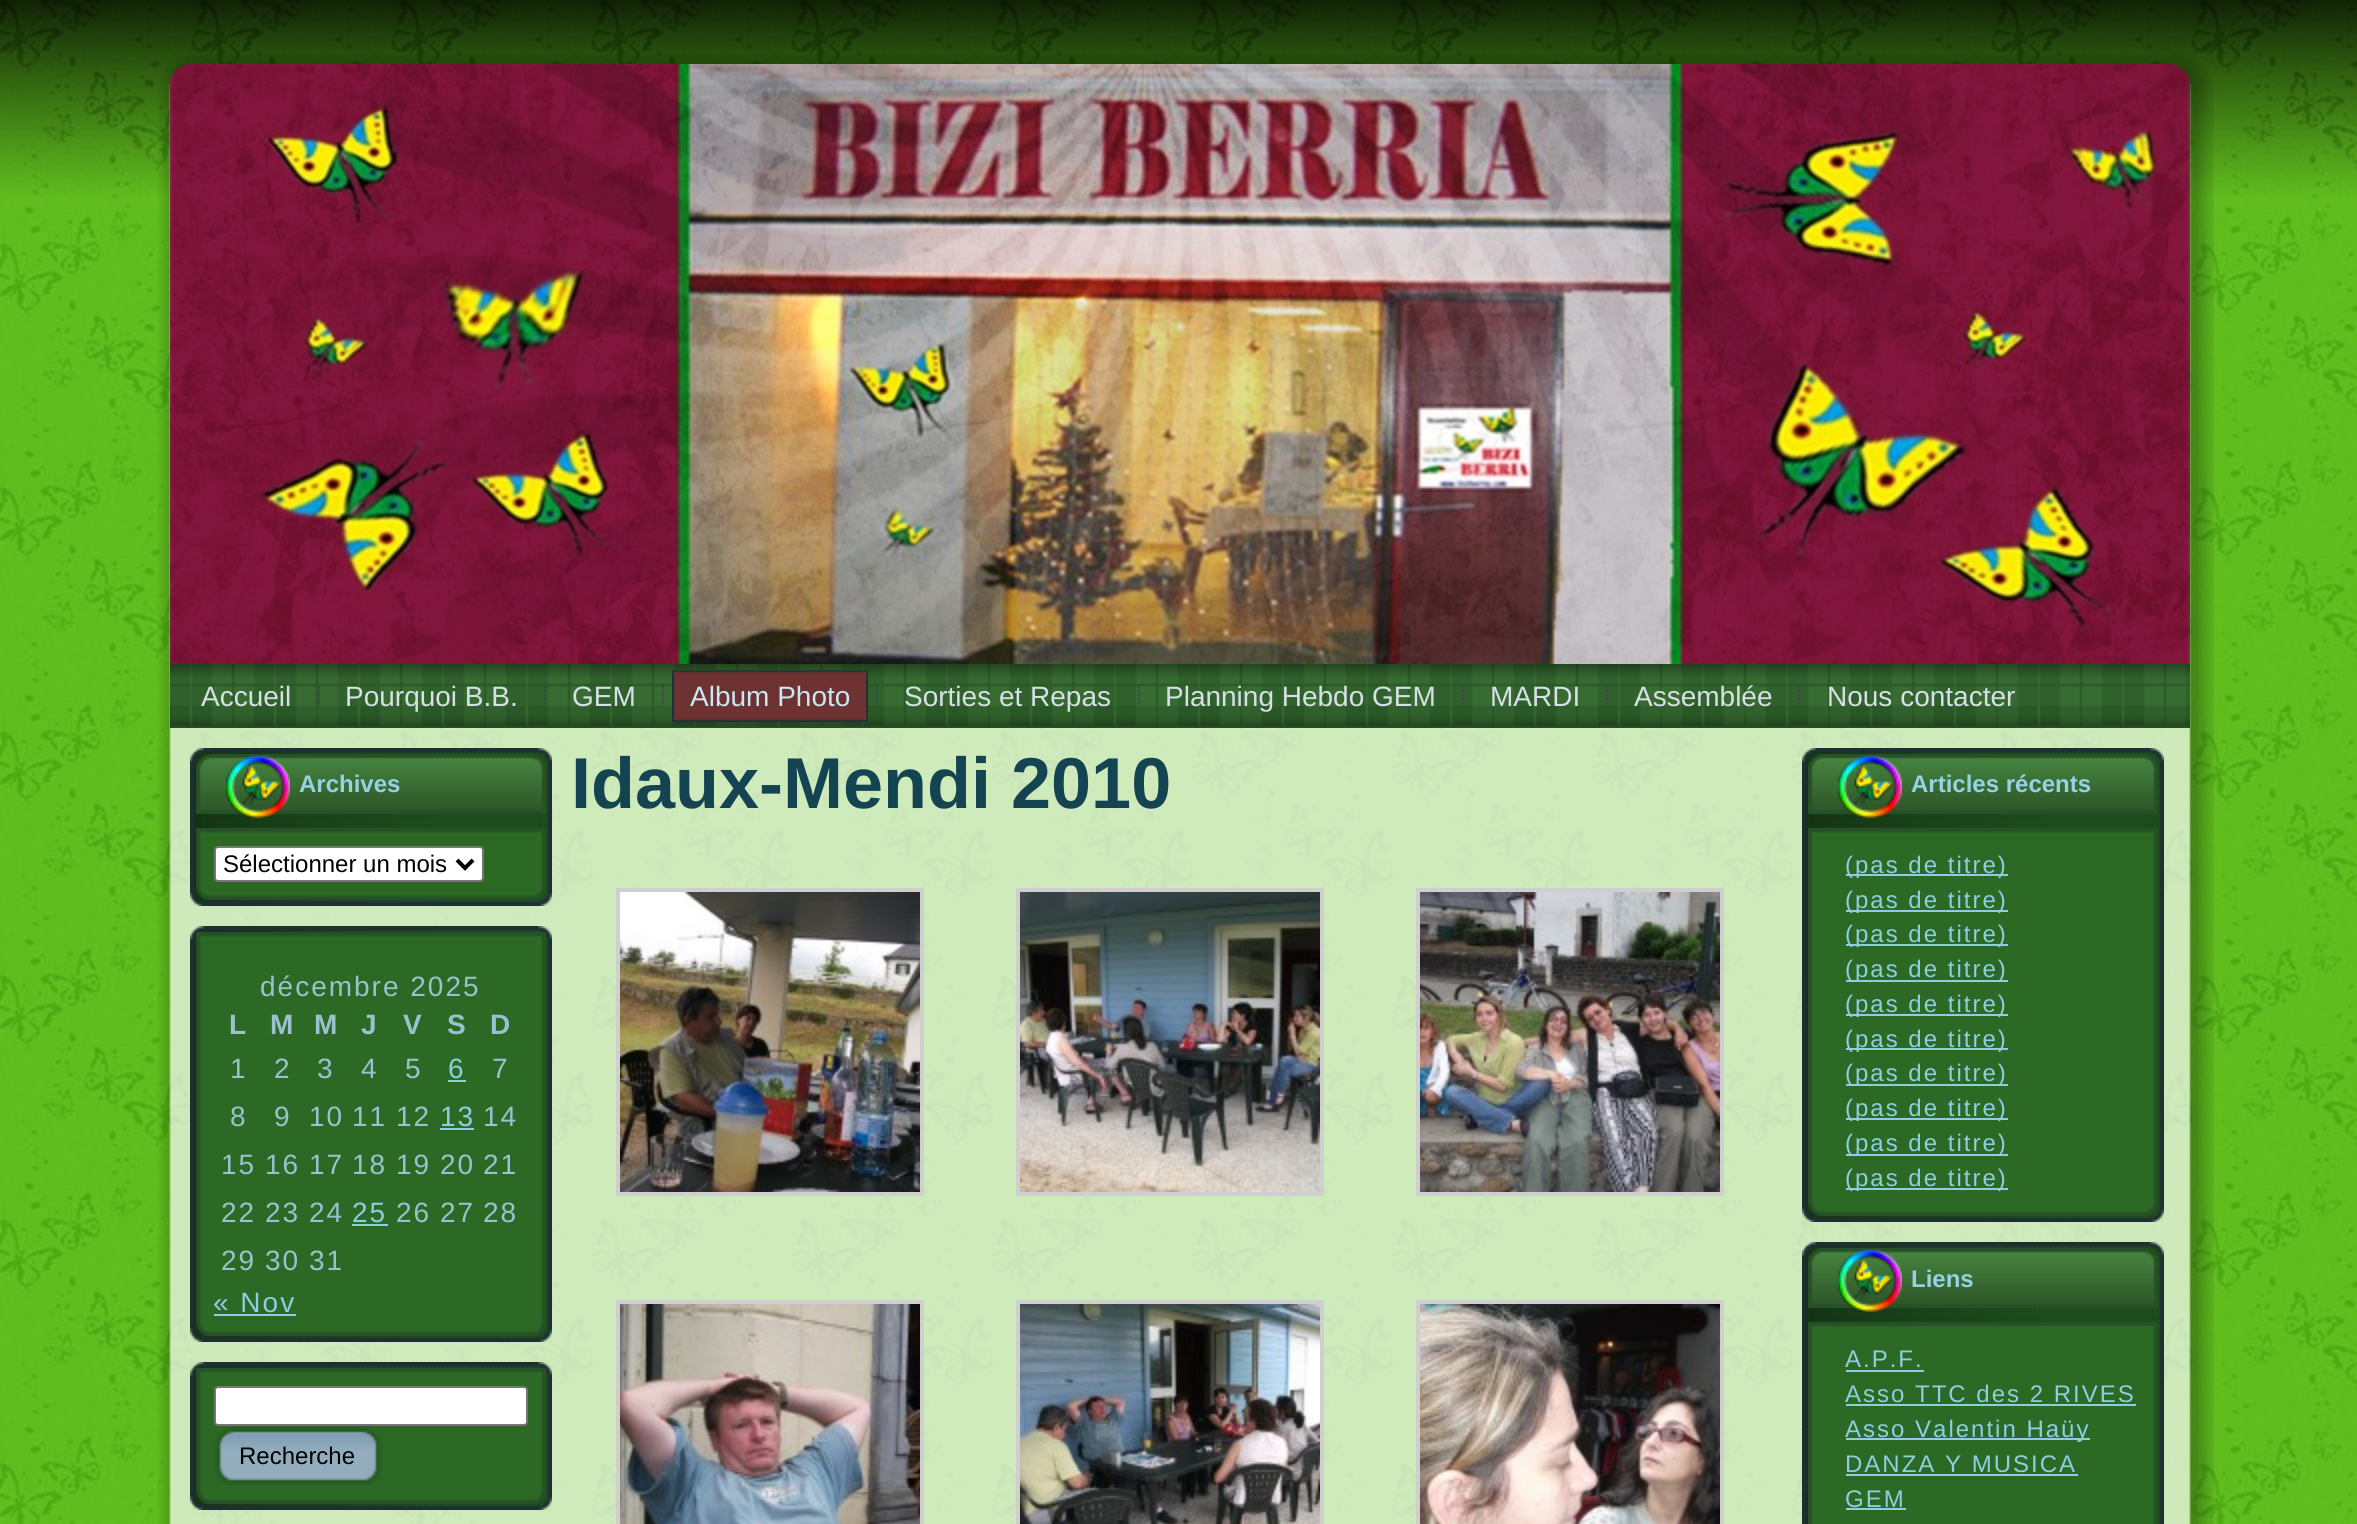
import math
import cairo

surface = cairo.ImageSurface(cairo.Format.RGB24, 2357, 1524)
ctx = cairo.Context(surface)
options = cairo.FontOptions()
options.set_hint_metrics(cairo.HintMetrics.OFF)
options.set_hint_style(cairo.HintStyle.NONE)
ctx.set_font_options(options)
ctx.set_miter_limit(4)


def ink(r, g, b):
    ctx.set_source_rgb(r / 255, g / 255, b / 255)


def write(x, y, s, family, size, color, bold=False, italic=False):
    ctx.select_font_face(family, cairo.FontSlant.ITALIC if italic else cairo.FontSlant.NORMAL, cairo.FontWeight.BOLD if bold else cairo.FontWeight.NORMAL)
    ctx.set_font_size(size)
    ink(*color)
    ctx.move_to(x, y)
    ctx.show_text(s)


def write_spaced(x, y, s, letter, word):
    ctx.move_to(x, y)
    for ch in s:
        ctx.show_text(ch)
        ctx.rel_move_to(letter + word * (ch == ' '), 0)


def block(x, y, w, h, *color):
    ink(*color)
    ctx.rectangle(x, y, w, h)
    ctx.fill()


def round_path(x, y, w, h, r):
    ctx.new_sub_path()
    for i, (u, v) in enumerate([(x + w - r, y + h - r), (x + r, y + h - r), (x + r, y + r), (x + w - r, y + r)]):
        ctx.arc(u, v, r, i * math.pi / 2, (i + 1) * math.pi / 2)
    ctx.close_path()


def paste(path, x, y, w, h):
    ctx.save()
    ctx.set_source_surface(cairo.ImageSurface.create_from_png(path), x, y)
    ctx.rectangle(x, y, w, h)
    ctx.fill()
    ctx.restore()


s1 = dict(family="Liberation Sans", size=28, color=(214, 224, 230))
s2 = dict(family="Liberation Sans", size=28, color=(202, 232, 242))
s3 = dict(family="Liberation Sans", size=24, color=(149, 210, 228), bold=True)
s4 = dict(family="Liberation Sans", size=24, color=(0, 0, 0))
s5 = dict(family="Liberation Sans", size=72, color=(20, 67, 82), bold=True)

ink(255, 255, 255)
ctx.paint()
paste("pic1.png", 0, 200, 2357, 1324)
paste("pic2.png", 0, 0, 2357, 200)
paste("pic3.png", 158, 54, 104, 102)
paste("pic4.png", 262, 54, 1836, 10)
paste("pic5.png", 2098, 54, 116, 102)
paste("pic6.png", 157, 156, 105, 1368)
paste("pic7.png", 2098, 156, 116, 1368)
paste("pic8.png", 170, 64, 2020, 600)
paste("pic9.png", 190, 84, 1980, 560)
paste("pic10.png", 170, 664, 2020, 64)
write(201, 706, "Accueil", **s1)
paste("pic11.png", 184, 721, 124, 1)
block(308, 721, 2, 1, 42, 88, 37)
paste("pic12.png", 318, 685, 2, 20)
write(345, 706, "Pourquoi B.B.", **s1)
paste("pic13.png", 328, 721, 206, 1)
block(534, 721, 2, 1, 37, 81, 32)
paste("pic14.png", 544, 685, 2, 20)
write(572, 706, "GEM", **s1)
paste("pic15.png", 554, 721, 98, 1)
block(652, 721, 2, 1, 38, 83, 34)
paste("pic16.png", 662, 685, 2, 20)
paste("pic17.png", 672, 670, 194, 52)
paste("pic18.png", 866, 670, 2, 52)
write(690, 706, "Album Photo", **s2)
paste("pic14.png", 876, 685, 2, 20)
write(904, 706, "Sorties et Repas", **s1)
paste("pic19.png", 886, 721, 242, 1)
block(1128, 721, 2, 1, 37, 81, 32)
paste("pic16.png", 1138, 685, 2, 20)
write(1165, 706, "Planning Hebdo GEM", **s1)
paste("pic20.png", 1148, 721, 304, 1)
ctx.set_source_rgba(0.18, 0.424, 0.145, 0.22)
ctx.rectangle(1452, 721, 2, 1)
ctx.fill()
paste("pic14.png", 1462, 685, 2, 20)
write(1490, 706, "MARDI", **s1)
paste("pic21.png", 1472, 721, 124, 1)
block(1596, 721, 2, 1, 41, 87, 37)
paste("pic14.png", 1606, 685, 2, 20)
write(1634, 706, "Assemblée", **s1)
paste("pic22.png", 1616, 721, 172, 1)
ctx.set_source_rgba(0.18, 0.424, 0.145, 0.22)
ctx.rectangle(1788, 721, 2, 1)
ctx.fill()
paste("pic14.png", 1798, 685, 2, 20)
write(1827, 706, "Nous contacter", **s1)
paste("pic23.png", 1808, 721, 224, 1)
block(2032, 721, 2, 1, 37, 81, 32)
paste("pic24.png", 190, 748, 14, 14)
ctx.set_source_rgba(0.996, 0.996, 0.996, 0.7)
ctx.rectangle(262, 728, 1836, 796)
ctx.fill()
paste("pic25.png", 204, 748, 334, 11)
paste("pic26.png", 538, 748, 14, 14)
paste("pic27.png", 190, 762, 14, 130)
paste("pic28.png", 196, 754, 336, 60)
paste("pic39.png", 538, 762, 14, 130)
paste("pic29.png", 532, 754, 14, 60)
paste("pic40.png", 204, 814, 334, 14)
paste("pic30.png", 225, 755, 65, 63)
write(299, 792, "Archives", **s3)
paste("pic31.png", 196, 828, 14, 14)
paste("pic32.png", 210, 828, 322, 14)
paste("pic33.png", 532, 828, 14, 14)
paste("pic34.png", 196, 842, 14, 44)
block(210, 842, 322, 44, 44, 105, 37)
paste("pic35.png", 532, 842, 14, 44)
ink(255, 255, 255)
round_path(215, 847, 268, 34, 3)
ctx.fill_preserve()
ink(118, 118, 118)
ctx.stroke()
ctx.new_path()
ctx.move_to(457, 860)
ctx.line_to(465, 868)
ctx.line_to(473, 860)
ink(0, 0, 0)
ctx.set_line_width(4)
ctx.stroke()
write(223, 872, "Sélectionner un mois", **s4)
paste("pic41.png", 190, 892, 14, 14)
paste("pic42.png", 204, 896, 334, 10)
paste("pic36.png", 196, 886, 14, 14)
paste("pic37.png", 210, 886, 322, 14)
paste("pic43.png", 538, 892, 14, 14)
paste("pic38.png", 532, 886, 14, 14)
paste("pic44.png", 190, 926, 14, 14)
paste("pic45.png", 204, 926, 334, 6)
paste("pic46.png", 538, 926, 14, 14)
paste("pic47.png", 190, 940, 11, 388)
paste("pic31.png", 196, 932, 14, 14)
paste("pic32.png", 210, 932, 322, 14)
paste("pic52.png", 542, 940, 10, 388)
paste("pic33.png", 532, 932, 14, 14)
paste("pic48.png", 196, 946, 14, 376)
block(210, 946, 322, 376, 44, 105, 37)
paste("pic49.png", 532, 946, 14, 376)
ctx.set_font_size(28)
ink(155, 193, 207)
write_spaced(260, 996, "décembre 2025", 2, 0)
ctx.select_font_face("Liberation Sans", cairo.FontSlant.NORMAL, cairo.FontWeight.BOLD)
write_spaced(229, 1034, "L", 2, 0)
write_spaced(270, 1034, "M", 2, 0)
write_spaced(314, 1034, "M", 2, 0)
write_spaced(361, 1034, "J", 2, 0)
write_spaced(403, 1034, "V", 2, 0)
write_spaced(447, 1034, "S", 2, 0)
write_spaced(490, 1034, "D", 2, 0)
ctx.select_font_face("Liberation Sans")
write_spaced(230, 1078, "1", 2, 0)
write_spaced(274, 1078, "2", 2, 0)
write_spaced(317, 1078, "3", 2, 0)
write_spaced(361, 1078, "4", 2, 0)
write_spaced(405, 1078, "5", 2, 0)
ink(141, 206, 226)
write_spaced(448, 1078, "6", 2, 0)
block(448, 1080, 18, 2, 141, 206, 226)
ink(155, 193, 207)
write_spaced(492, 1078, "7", 2, 0)
write_spaced(230, 1126, "8", 2, 0)
write_spaced(274, 1126, "9", 2, 0)
write_spaced(309, 1126, "10", 2, 0)
write_spaced(352, 1126, "11", 2, 0)
write_spaced(396, 1126, "12", 2, 0)
ink(141, 206, 226)
write_spaced(440, 1126, "13", 2, 0)
block(440, 1128, 34, 2, 141, 206, 226)
ink(155, 193, 207)
write_spaced(483, 1126, "14", 2, 0)
write_spaced(221, 1174, "15", 2, 0)
write_spaced(265, 1174, "16", 2, 0)
write_spaced(309, 1174, "17", 2, 0)
write_spaced(352, 1174, "18", 2, 0)
write_spaced(396, 1174, "19", 2, 0)
write_spaced(440, 1174, "20", 2, 0)
write_spaced(483, 1174, "21", 2, 0)
write_spaced(221, 1222, "22", 2, 0)
write_spaced(265, 1222, "23", 2, 0)
write_spaced(309, 1222, "24", 2, 0)
ink(141, 206, 226)
write_spaced(352, 1222, "25", 2, 0)
block(352, 1224, 36, 2, 141, 206, 226)
ink(155, 193, 207)
write_spaced(396, 1222, "26", 2, 0)
write_spaced(440, 1222, "27", 2, 0)
write_spaced(483, 1222, "28", 2, 0)
write_spaced(221, 1270, "29", 2, 0)
write_spaced(265, 1270, "30", 2, 0)
write_spaced(309, 1270, "31", 2, 0)
ink(141, 206, 226)
write_spaced(213, 1312, "« Nov", 2, 0)
block(214, 1314, 82, 2, 141, 206, 226)
paste("pic53.png", 190, 1328, 14, 14)
paste("pic42.png", 204, 1332, 334, 10)
paste("pic50.png", 196, 1322, 14, 14)
paste("pic37.png", 210, 1322, 322, 14)
paste("pic54.png", 538, 1328, 14, 14)
paste("pic51.png", 532, 1322, 14, 14)
paste("pic55.png", 190, 1362, 14, 14)
paste("pic45.png", 204, 1362, 334, 6)
paste("pic56.png", 538, 1362, 14, 14)
paste("pic57.png", 190, 1376, 11, 120)
paste("pic31.png", 196, 1368, 14, 14)
paste("pic32.png", 210, 1368, 322, 14)
paste("pic62.png", 542, 1376, 10, 120)
paste("pic33.png", 532, 1368, 14, 14)
paste("pic58.png", 196, 1382, 14, 108)
block(210, 1382, 322, 108, 44, 105, 37)
paste("pic59.png", 532, 1382, 14, 108)
ink(255, 255, 255)
round_path(215, 1387, 312, 38, 3)
ctx.fill_preserve()
ink(118, 118, 118)
ctx.set_line_width(2)
ctx.stroke()
paste("pic60.png", 214, 1426, 142, 60)
paste("pic61.png", 356, 1426, 26, 60)
write(239, 1464, "Recherche", **s4)
paste("pic63.png", 190, 1496, 14, 14)
paste("pic42.png", 204, 1500, 334, 10)
paste("pic50.png", 196, 1490, 14, 14)
paste("pic37.png", 210, 1490, 322, 14)
paste("pic64.png", 538, 1496, 14, 14)
paste("pic51.png", 532, 1490, 14, 14)
write(571, 808, "Idaux-Mendi 2010", **s5)
ctx.rectangle(618, 890, 304, 304)
ink(207, 207, 207)
ctx.set_line_width(4)
ctx.stroke()
paste("pic65.png", 620, 892, 300, 300)
ctx.rectangle(1018, 890, 304, 304)
ctx.stroke()
paste("pic66.png", 1020, 892, 300, 300)
ctx.rectangle(1418, 890, 304, 304)
ctx.stroke()
paste("pic67.png", 1420, 892, 300, 300)
ctx.rectangle(618, 1302, 304, 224)
ctx.stroke()
paste("pic68.png", 620, 1304, 300, 220)
ctx.rectangle(1018, 1302, 304, 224)
ctx.stroke()
paste("pic69.png", 1020, 1304, 300, 220)
ctx.rectangle(1418, 1302, 304, 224)
ctx.stroke()
paste("pic70.png", 1420, 1304, 300, 220)
paste("pic71.png", 1802, 748, 14, 14)
paste("pic25.png", 1816, 748, 334, 11)
paste("pic72.png", 2150, 748, 14, 14)
paste("pic73.png", 1802, 762, 14, 446)
paste("pic28.png", 1808, 754, 336, 60)
paste("pic78.png", 2150, 762, 14, 446)
paste("pic29.png", 2144, 754, 14, 60)
paste("pic40.png", 1816, 814, 334, 14)
paste("pic30.png", 1837, 755, 65, 63)
write(1911, 792, "Articles récents", **s3)
paste("pic31.png", 1808, 828, 14, 14)
paste("pic32.png", 1822, 828, 322, 14)
paste("pic33.png", 2144, 828, 14, 14)
paste("pic74.png", 1808, 842, 14, 360)
block(1822, 842, 322, 360, 44, 105, 37)
paste("pic75.png", 2144, 842, 14, 360)
block(1846, 874, 162, 2, 141, 206, 226)
ctx.select_font_face("Liberation Sans")
write_spaced(1845, 873, "(pas de titre)", 2, 0)
block(1846, 910, 162, 2, 141, 206, 226)
write_spaced(1845, 908, "(pas de titre)", 2, 0)
block(1846, 944, 162, 2, 141, 206, 226)
write_spaced(1845, 942, "(pas de titre)", 2, 0)
block(1846, 980, 162, 2, 141, 206, 226)
write_spaced(1845, 977, "(pas de titre)", 2, 0)
block(1846, 1014, 162, 2, 141, 206, 226)
write_spaced(1845, 1012, "(pas de titre)", 2, 0)
block(1846, 1048, 162, 2, 141, 206, 226)
write_spaced(1845, 1047, "(pas de titre)", 2, 0)
block(1846, 1084, 162, 2, 141, 206, 226)
write_spaced(1845, 1081, "(pas de titre)", 2, 0)
block(1846, 1118, 162, 2, 141, 206, 226)
write_spaced(1845, 1116, "(pas de titre)", 2, 0)
block(1846, 1154, 162, 2, 141, 206, 226)
write_spaced(1845, 1151, "(pas de titre)", 2, 0)
block(1846, 1188, 162, 2, 141, 206, 226)
write_spaced(1845, 1186, "(pas de titre)", 2, 0)
paste("pic79.png", 1802, 1208, 14, 14)
paste("pic42.png", 1816, 1212, 334, 10)
paste("pic76.png", 1808, 1202, 14, 14)
paste("pic37.png", 1822, 1202, 322, 14)
paste("pic80.png", 2150, 1208, 14, 14)
paste("pic77.png", 2144, 1202, 14, 14)
paste("pic81.png", 1802, 1242, 14, 14)
paste("pic25.png", 1816, 1242, 334, 11)
paste("pic82.png", 2150, 1242, 14, 14)
paste("pic83.png", 1802, 1256, 14, 268)
paste("pic84.png", 1808, 1248, 336, 60)
paste("pic88.png", 2150, 1256, 14, 268)
paste("pic85.png", 2144, 1248, 14, 60)
paste("pic40.png", 1816, 1308, 334, 14)
paste("pic30.png", 1837, 1249, 65, 63)
write(1911, 1287, "Liens", **s3)
paste("pic31.png", 1808, 1322, 14, 14)
paste("pic32.png", 1822, 1322, 322, 14)
paste("pic33.png", 2144, 1322, 14, 14)
paste("pic86.png", 1808, 1336, 14, 188)
block(1822, 1336, 322, 188, 44, 105, 37)
paste("pic87.png", 2144, 1336, 14, 188)
ctx.select_font_face("Liberation Sans")
ink(141, 206, 226)
write_spaced(1845, 1367, "A.P.F.", 2, 0)
block(1846, 1370, 78, 2, 141, 206, 226)
write_spaced(1845, 1402, "Asso TTC des 2 RIVES", 2, 0)
block(1846, 1404, 290, 2, 141, 206, 226)
block(1846, 1438, 244, 2, 141, 206, 226)
write_spaced(1845, 1437, "Asso Valentin Haüy", 2, 0)
write_spaced(1845, 1472, "DANZA Y MUSICA", 2, 0)
block(1846, 1474, 232, 2, 141, 206, 226)
write_spaced(1845, 1507, "GEM", 2, 0)
block(1846, 1508, 60, 2, 141, 206, 226)
surface.write_to_png("screenshot.png")
